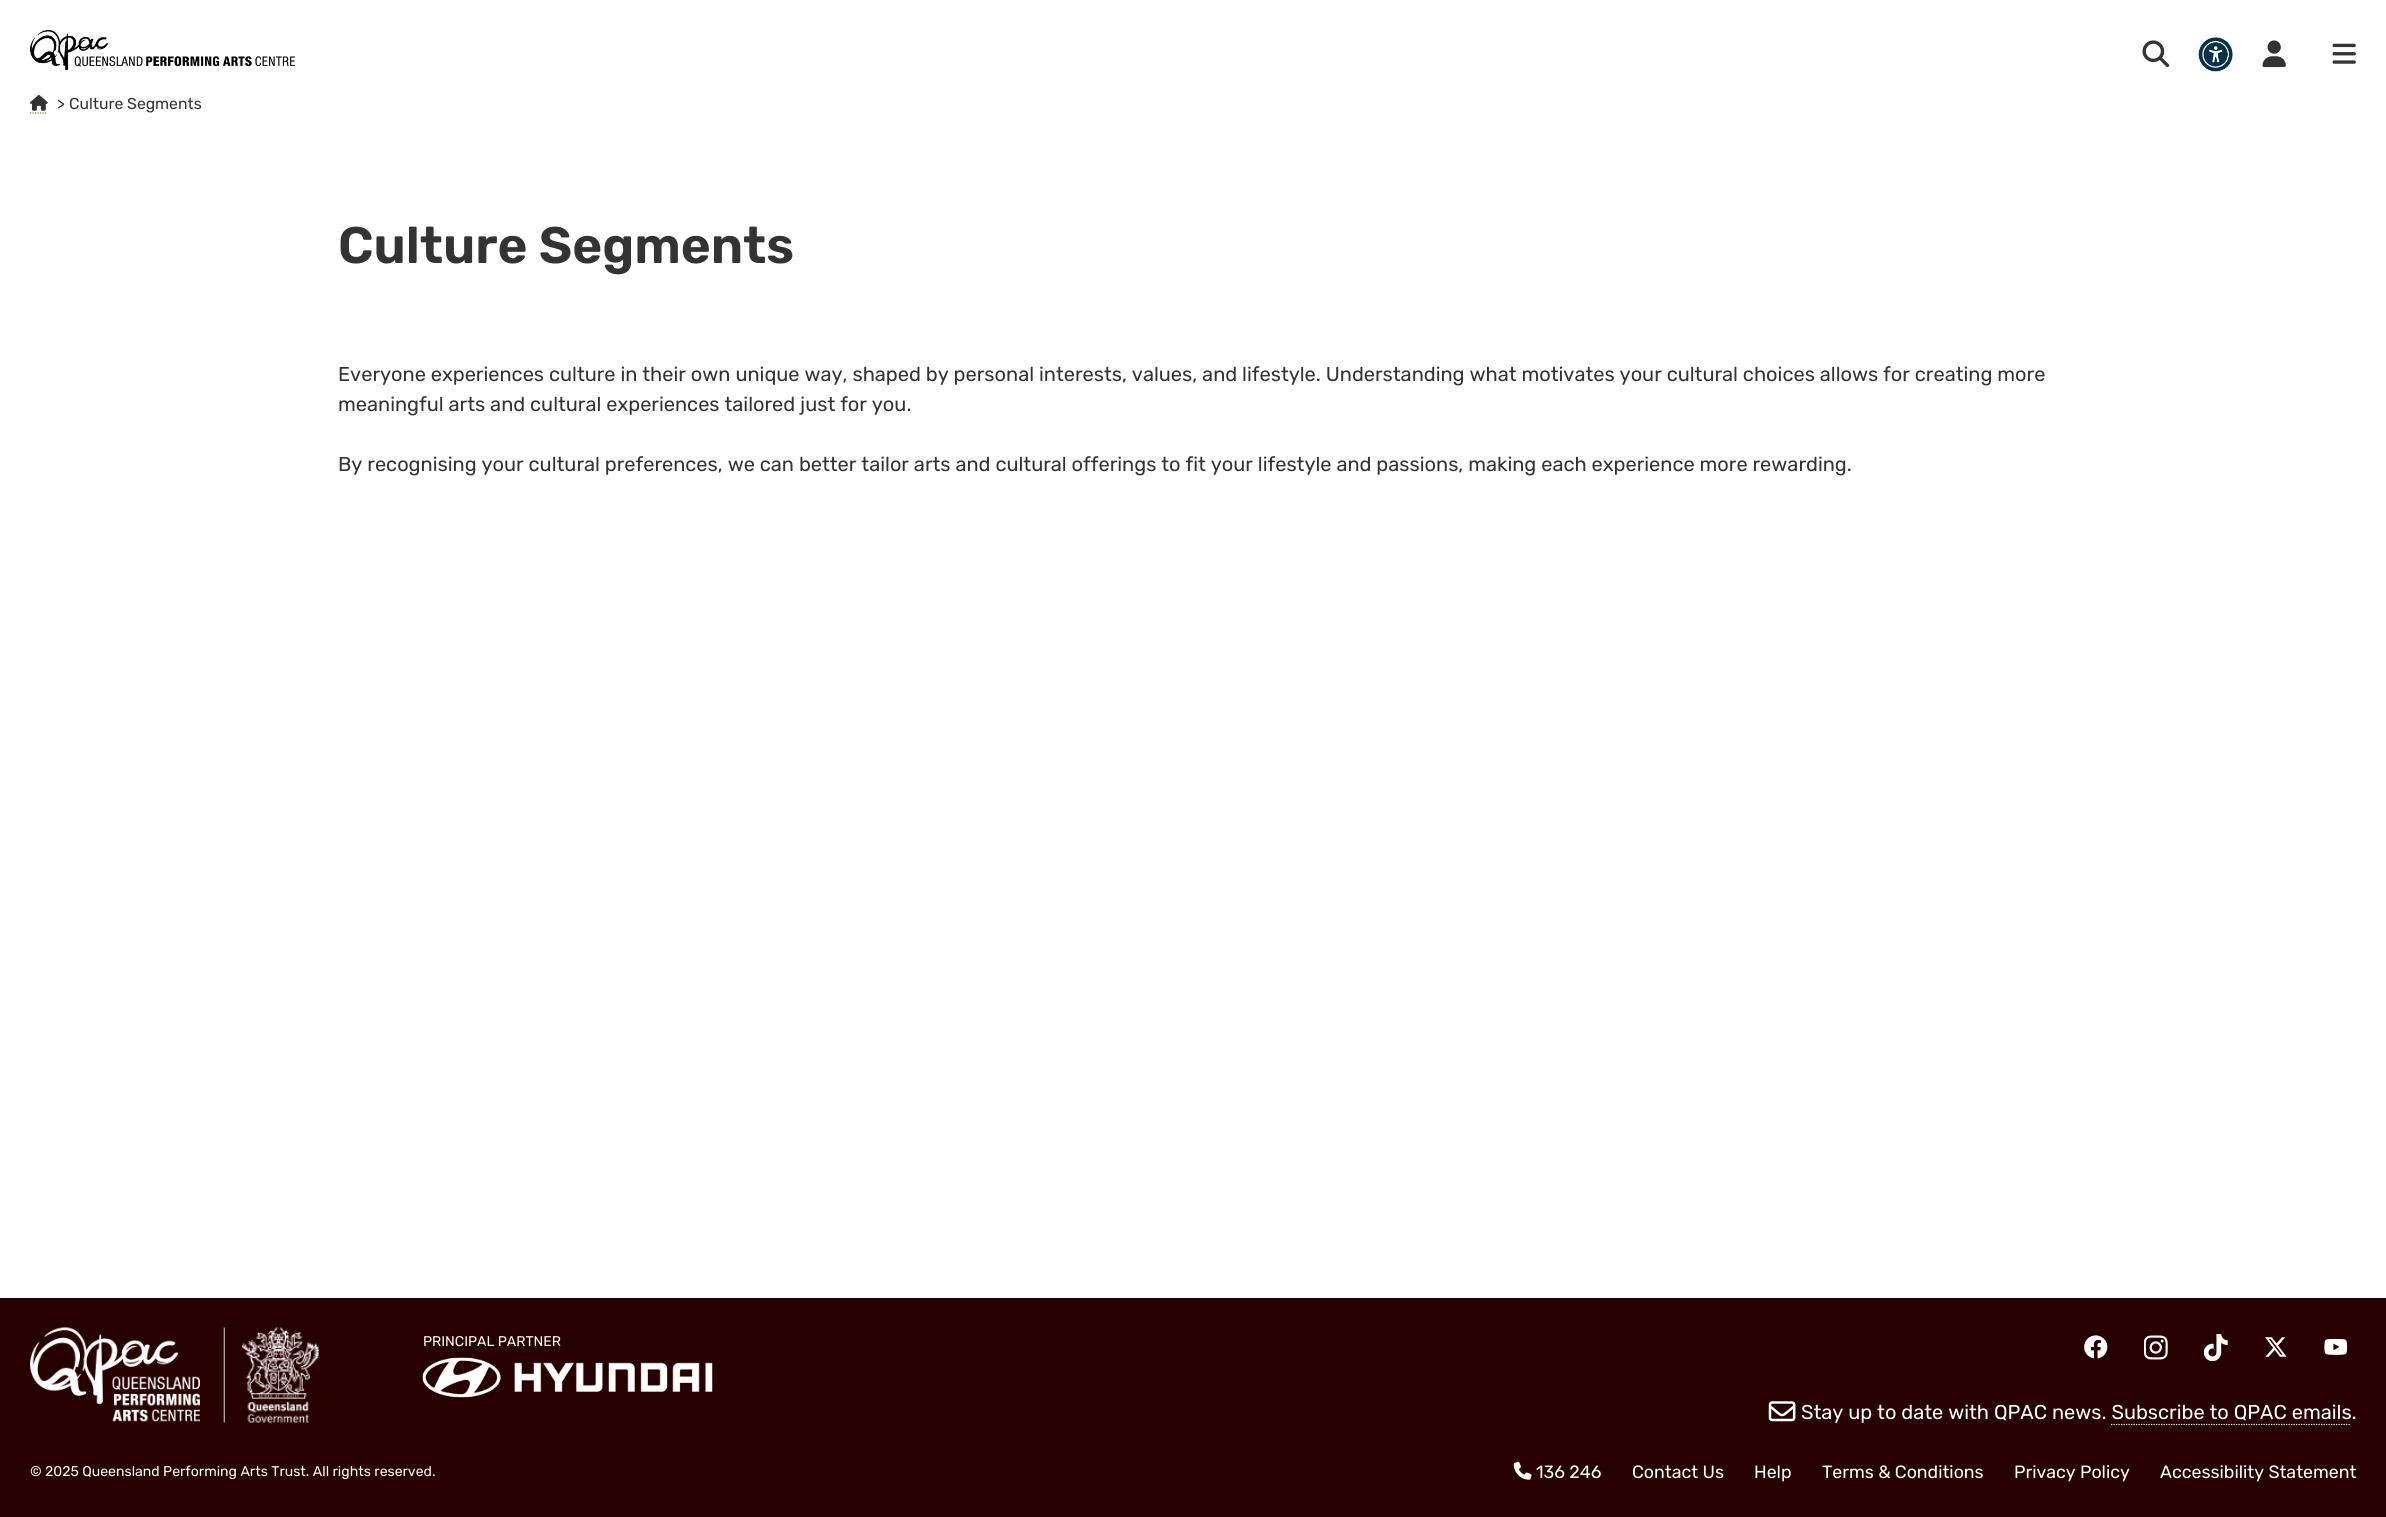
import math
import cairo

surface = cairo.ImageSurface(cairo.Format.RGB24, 2386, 1517)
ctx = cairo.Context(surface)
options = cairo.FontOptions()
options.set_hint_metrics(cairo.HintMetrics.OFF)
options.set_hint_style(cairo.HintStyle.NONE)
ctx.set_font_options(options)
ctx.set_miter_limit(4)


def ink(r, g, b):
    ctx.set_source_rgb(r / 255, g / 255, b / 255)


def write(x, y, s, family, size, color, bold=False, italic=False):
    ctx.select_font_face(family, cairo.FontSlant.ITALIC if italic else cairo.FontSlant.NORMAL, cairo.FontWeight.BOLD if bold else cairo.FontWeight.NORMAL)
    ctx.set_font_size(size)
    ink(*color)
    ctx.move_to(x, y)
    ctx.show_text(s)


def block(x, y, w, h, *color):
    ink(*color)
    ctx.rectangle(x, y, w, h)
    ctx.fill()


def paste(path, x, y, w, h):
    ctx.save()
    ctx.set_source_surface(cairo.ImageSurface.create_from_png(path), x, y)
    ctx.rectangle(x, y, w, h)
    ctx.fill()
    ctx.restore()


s1 = dict(family="Rubik", size=15.75, color=(51, 51, 51))
s2 = dict(family="Rubik SemiBold", size=51.25, color=(51, 51, 51))
s3 = dict(family="Rubik", size=20, color=(51, 51, 51))
s4 = dict(family="Rubik", size=14.05, color=(255, 255, 255))
s5 = dict(family="Rubik", size=20, color=(255, 255, 255))
s6 = dict(family="Rubik", size=17.75, color=(255, 255, 255))

ink(255, 255, 255)
ctx.paint()
paste("pic1.png", 30, 30, 265, 40)
paste("pic2.png", 2142, 40, 28, 28)
paste("pic3.png", 2198, 37, 35, 35)
paste("pic4.png", 2262, 40, 24, 28)
paste("pic5.png", 2332, 43, 24, 21)
ctx.new_path()
ctx.move_to(30, 113)
ctx.line_to(47.5, 113)
ink(173, 119, 61)
ctx.set_line_width(1.2)
ctx.set_dash([1.25, 1.25])
ctx.stroke()
paste("pic6.png", 30, 95, 18, 16)
write(57, 109, ">", **s1)
write(69, 109, "Culture Segments", **s1)
write(338, 263, "Culture Segments", **s2)
write(338, 381, "Everyone experiences culture in their own unique way, shaped by personal interests, values, and lifestyle. Understanding what motivates your cultural choices allows for creating more", **s3)
write(338, 411, "meaningful arts and cultural experiences tailored just for you.", **s3)
write(338, 471, "By recognising your cultural preferences, we can better tailor arts and cultural offerings to fit your lifestyle and passions, making each experience more rewarding.", **s3)
block(0, 1298, 2386, 219, 39, 0, 0)
paste("pic7.png", 30, 1327, 170, 95)
paste("pic8.png", 223, 1327, 96, 96)
write(423, 1346, "PRINCIPAL PARTNER", **s4)
paste("pic9.png", 422, 1357, 291, 41)
paste("pic10.png", 2084, 1335, 24, 24)
paste("pic11.png", 2144, 1335, 24, 25)
paste("pic12.png", 2204, 1334, 24, 27)
paste("pic13.png", 2265, 1337, 22, 20)
paste("pic14.png", 2324, 1338, 24, 17)
paste("pic15.png", 1768, 1401, 28, 21)
write(1801, 1419, "Stay up to date with QPAC news. Subscribe to QPAC emails.", **s5)
ctx.new_path()
ctx.move_to(2111, 1424.5)
ctx.line_to(2351, 1424.5)
ctx.stroke()
write(30, 1476, "© 2025 Queensland Performing Arts Trust. All rights reserved.", **s4)
paste("pic16.png", 1513, 1461, 19, 19)
write(1536, 1478, "136 246", **s6)
write(1632, 1478, "Contact Us", **s6)
write(1754, 1478, "Help", **s6)
write(1822, 1478, "Terms & Conditions", **s6)
write(2014, 1478, "Privacy Policy", **s6)
write(2160, 1478, "Accessibility Statement", **s6)
surface.write_to_png("screenshot.png")
